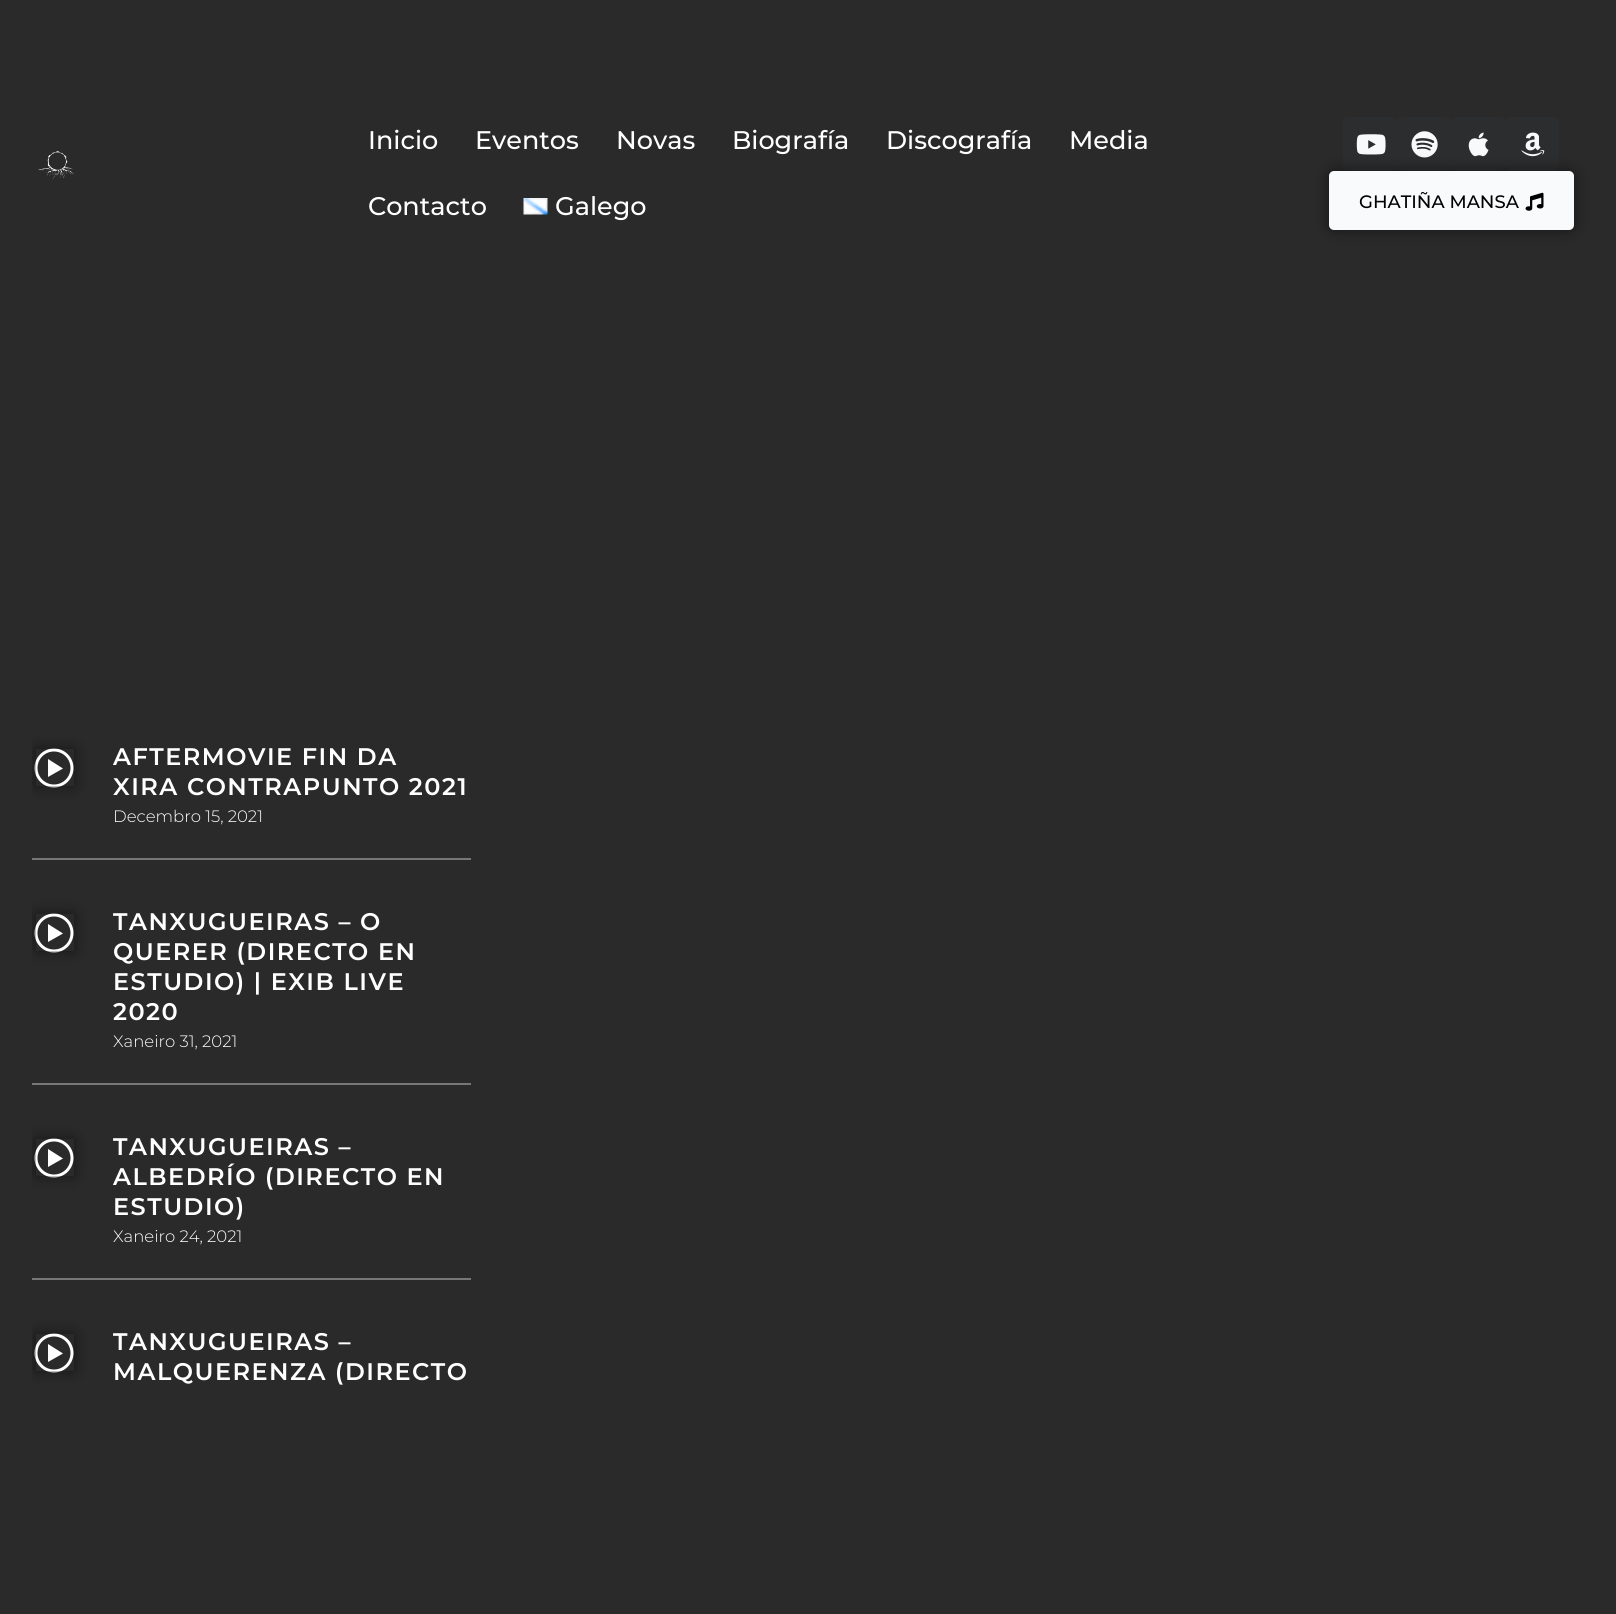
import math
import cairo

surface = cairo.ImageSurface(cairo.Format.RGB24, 1616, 1614)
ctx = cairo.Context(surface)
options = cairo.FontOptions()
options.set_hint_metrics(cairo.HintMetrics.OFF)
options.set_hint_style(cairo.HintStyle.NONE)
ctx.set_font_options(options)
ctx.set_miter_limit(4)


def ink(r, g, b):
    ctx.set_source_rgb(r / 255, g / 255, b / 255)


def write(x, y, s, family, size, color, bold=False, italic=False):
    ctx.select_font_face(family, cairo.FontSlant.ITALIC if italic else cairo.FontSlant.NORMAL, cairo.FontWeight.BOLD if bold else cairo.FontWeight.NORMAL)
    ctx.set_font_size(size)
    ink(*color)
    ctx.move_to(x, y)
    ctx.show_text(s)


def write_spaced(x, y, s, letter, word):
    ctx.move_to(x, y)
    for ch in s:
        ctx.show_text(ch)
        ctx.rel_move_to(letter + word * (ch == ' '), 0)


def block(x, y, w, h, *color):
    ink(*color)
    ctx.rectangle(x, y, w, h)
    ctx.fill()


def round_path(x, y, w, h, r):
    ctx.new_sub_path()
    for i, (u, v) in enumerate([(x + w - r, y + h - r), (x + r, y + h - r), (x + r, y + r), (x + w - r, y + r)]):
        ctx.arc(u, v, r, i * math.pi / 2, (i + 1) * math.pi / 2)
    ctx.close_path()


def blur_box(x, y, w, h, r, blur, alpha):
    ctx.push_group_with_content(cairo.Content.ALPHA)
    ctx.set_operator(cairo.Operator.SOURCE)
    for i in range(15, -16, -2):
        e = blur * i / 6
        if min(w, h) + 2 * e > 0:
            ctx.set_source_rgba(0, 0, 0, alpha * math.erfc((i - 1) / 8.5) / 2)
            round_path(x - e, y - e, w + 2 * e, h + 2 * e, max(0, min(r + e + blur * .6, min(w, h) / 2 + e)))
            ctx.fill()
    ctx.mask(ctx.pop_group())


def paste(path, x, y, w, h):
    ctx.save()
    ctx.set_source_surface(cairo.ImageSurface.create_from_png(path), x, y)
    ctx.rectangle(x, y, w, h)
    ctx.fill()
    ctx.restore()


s1 = dict(family="Montserrat Medium", size=25.5, color=(255, 255, 255))
s2 = dict(family="Montserrat Medium", size=18, color=(0, 0, 0))
s3 = dict(family="Montserrat Light", size=16.5, color=(255, 255, 255))

ink(42, 42, 42)
ctx.paint()
paste("pic1.png", 38, 151, 36, 28)
write(368, 149, "Inicio", **s1)
write(475, 149, "Eventos", **s1)
write(616, 149, "Novas", **s1)
write(732, 149, "Biografía", **s1)
write(886, 149, "Discografía", **s1)
write(1069, 149, "Media", **s1)
write(368, 215, "Contacto", **s1)
paste("pic2.png", 523, 198, 25, 17)
write(555, 215, "Galego", **s1)
ink(44, 45, 46)
round_path(1343, 117, 54, 54, 6)
ctx.fill()
paste("pic3.png", 1356, 134, 30, 21)
round_path(1397, 117, 54, 54, 6)
ctx.fill()
paste("pic4.png", 1411, 131, 27, 27)
round_path(1451, 117, 54, 54, 6)
ctx.fill()
paste("pic5.png", 1468, 132, 21, 25)
round_path(1505, 117, 54, 54, 6)
ctx.fill()
paste("pic6.png", 1521, 132, 24, 25)
ink(0, 0, 0)
blur_box(1329, 171, 245, 59, 5, 7.5, 0.5)
ink(248, 250, 252)
round_path(1329, 171, 245, 59, 5)
ctx.fill()
write(1359, 208, "GHATIÑA MANSA", **s2)
paste("pic7.png", 1525, 192, 19, 19)
block(32, 858, 439, 2, 119, 119, 119)
ctx.arc(54, 768, 18, 0, 2 * math.pi)
ink(255, 255, 255)
ctx.set_line_width(3)
ctx.stroke()
ctx.save()
ctx.rectangle(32, 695, 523, 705)
ctx.clip()
ctx.set_fill_rule(cairo.FillRule.EVEN_ODD)
ctx.new_path()
ctx.move_to(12, 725)
ctx.line_to(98, 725)
ctx.line_to(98, 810)
ctx.line_to(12, 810)
ctx.close_path()
ctx.move_to(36, 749)
ctx.line_to(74, 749)
ctx.line_to(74, 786)
ctx.line_to(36, 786)
ctx.close_path()
ctx.clip()
ink(0, 0, 0)
blur_box(36, 749, 38, 37, 0, 7.5, 0.5)
ctx.restore()
ctx.new_path()
ctx.move_to(48, 759)
ctx.line_to(63, 768.5)
ctx.line_to(48, 777)
ctx.close_path()
ctx.fill()
ctx.select_font_face("Montserrat SemiBold")
ctx.set_font_size(24)
write_spaced(113, 765, "AFTERMOVIE FIN DA", 1.5, 0)
write_spaced(113, 795, "XIRA CONTRAPUNTO 2021", 1.5, 0)
write(113, 822, "Decembro 15, 2021", **s3)
block(32, 1083, 439, 2, 119, 119, 119)
ctx.new_path()
ctx.arc(54, 933, 18, 0, 2 * math.pi)
ink(255, 255, 255)
ctx.stroke()
ctx.save()
ctx.rectangle(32, 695, 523, 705)
ctx.clip()
ctx.set_fill_rule(cairo.FillRule.EVEN_ODD)
ctx.new_path()
ctx.move_to(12, 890)
ctx.line_to(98, 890)
ctx.line_to(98, 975)
ctx.line_to(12, 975)
ctx.close_path()
ctx.move_to(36, 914)
ctx.line_to(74, 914)
ctx.line_to(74, 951)
ctx.line_to(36, 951)
ctx.close_path()
ctx.clip()
ink(0, 0, 0)
blur_box(36, 914, 38, 37, 0, 7.5, 0.5)
ctx.restore()
ctx.new_path()
ctx.move_to(48, 924)
ctx.line_to(63, 933.5)
ctx.line_to(48, 942)
ctx.close_path()
ctx.fill()
ctx.select_font_face("Montserrat SemiBold")
ctx.set_font_size(24)
write_spaced(113, 930, "TANXUGUEIRAS – O", 1.5, 0)
write_spaced(113, 960, "QUERER (DIRECTO EN", 1.5, 0)
write_spaced(113, 990, "ESTUDIO) | EXIB LIVE", 1.5, 0)
write_spaced(113, 1020, "2020", 1.5, 0)
write(113, 1047, "Xaneiro 31, 2021", **s3)
block(32, 1278, 439, 2, 119, 119, 119)
ctx.new_path()
ctx.arc(54, 1158, 18, 0, 2 * math.pi)
ink(255, 255, 255)
ctx.stroke()
ctx.save()
ctx.rectangle(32, 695, 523, 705)
ctx.clip()
ctx.set_fill_rule(cairo.FillRule.EVEN_ODD)
ctx.new_path()
ctx.move_to(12, 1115)
ctx.line_to(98, 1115)
ctx.line_to(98, 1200)
ctx.line_to(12, 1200)
ctx.close_path()
ctx.move_to(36, 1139)
ctx.line_to(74, 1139)
ctx.line_to(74, 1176)
ctx.line_to(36, 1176)
ctx.close_path()
ctx.clip()
ink(0, 0, 0)
blur_box(36, 1139, 38, 37, 0, 7.5, 0.5)
ctx.restore()
ctx.new_path()
ctx.move_to(48, 1149)
ctx.line_to(63, 1158.5)
ctx.line_to(48, 1167)
ctx.close_path()
ctx.fill()
ctx.select_font_face("Montserrat SemiBold")
ctx.set_font_size(24)
write_spaced(113, 1155, "TANXUGUEIRAS –", 1.5, 0)
write_spaced(113, 1185, "ALBEDRÍO (DIRECTO EN", 1.5, 0)
write_spaced(113, 1215, "ESTUDIO)", 1.5, 0)
write(113, 1242, "Xaneiro 24, 2021", **s3)
ctx.new_path()
ctx.arc(54, 1353, 18, 0, 2 * math.pi)
ctx.stroke()
ctx.save()
ctx.rectangle(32, 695, 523, 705)
ctx.clip()
ctx.set_fill_rule(cairo.FillRule.EVEN_ODD)
ctx.new_path()
ctx.move_to(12, 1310)
ctx.line_to(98, 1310)
ctx.line_to(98, 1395)
ctx.line_to(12, 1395)
ctx.close_path()
ctx.move_to(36, 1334)
ctx.line_to(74, 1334)
ctx.line_to(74, 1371)
ctx.line_to(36, 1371)
ctx.close_path()
ctx.clip()
ink(0, 0, 0)
blur_box(36, 1334, 38, 37, 0, 7.5, 0.5)
ctx.restore()
ctx.new_path()
ctx.move_to(48, 1344)
ctx.line_to(63, 1353.5)
ctx.line_to(48, 1362)
ctx.close_path()
ctx.fill()
ctx.select_font_face("Montserrat SemiBold")
ctx.set_font_size(24)
write_spaced(113, 1350, "TANXUGUEIRAS –", 1.5, 0)
write_spaced(113, 1380, "MALQUERENZA (DIRECTO", 1.5, 0)
surface.write_to_png("screenshot.png")
